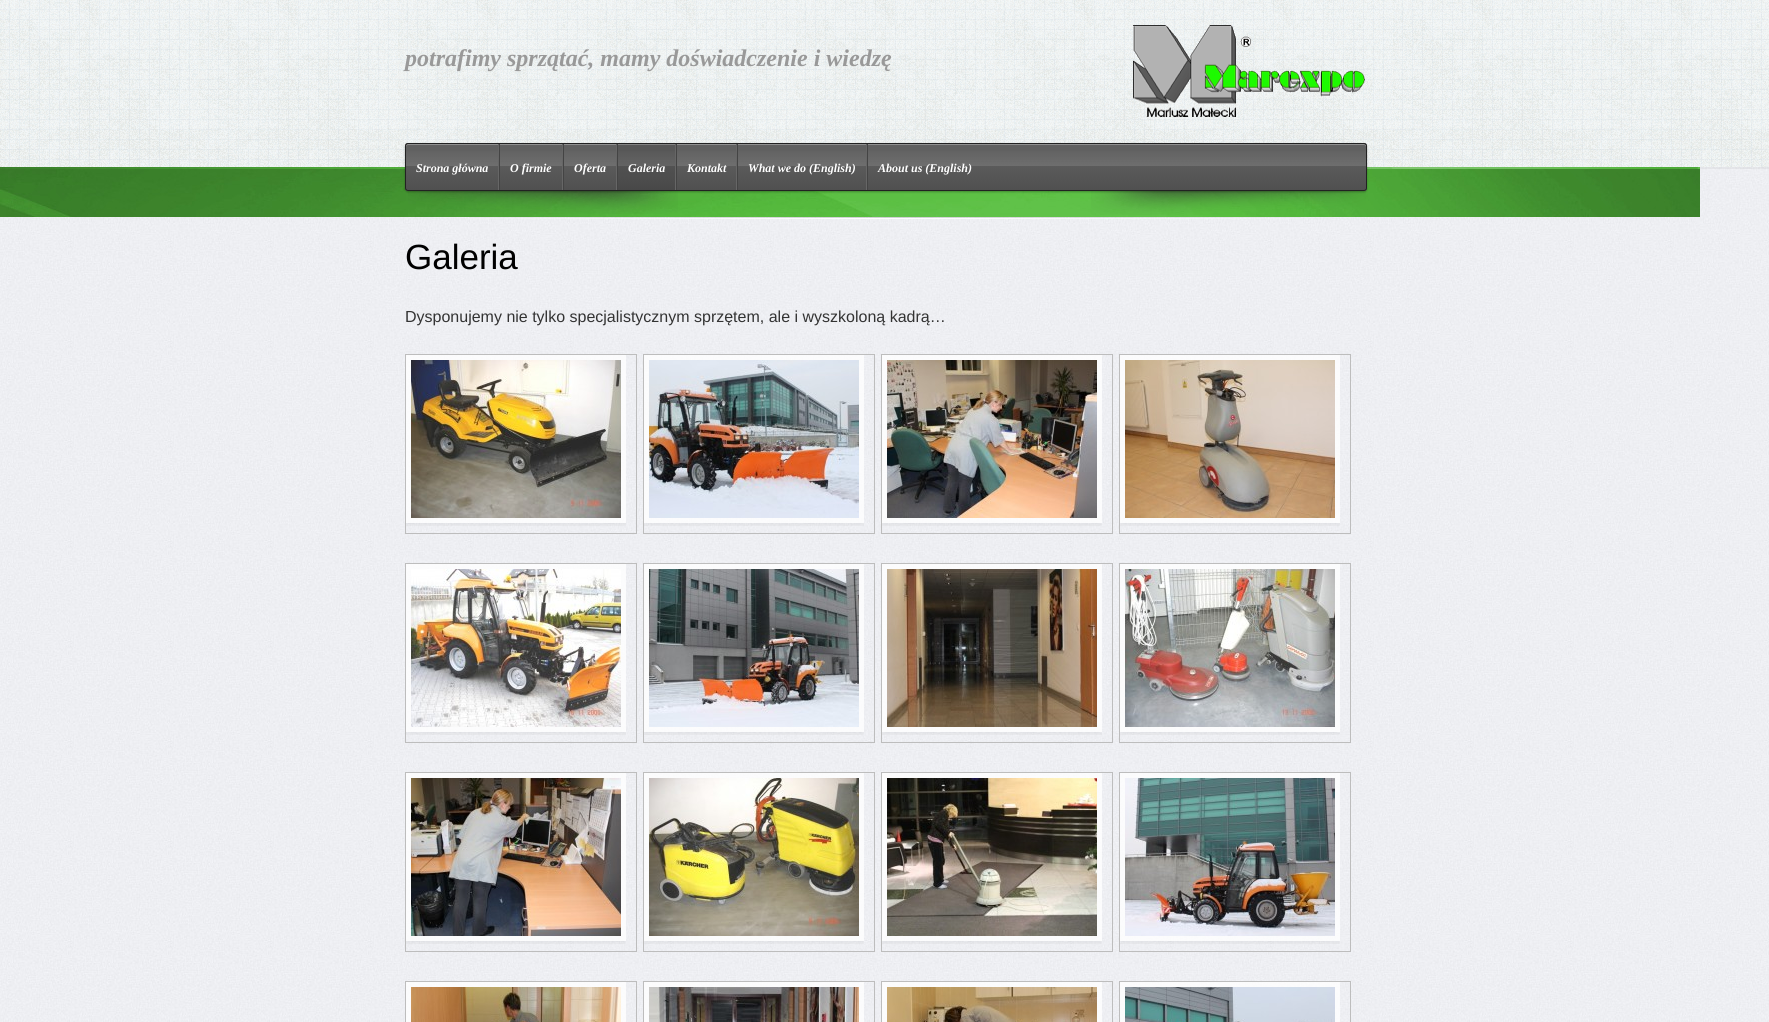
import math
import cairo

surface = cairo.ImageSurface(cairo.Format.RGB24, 1769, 1022)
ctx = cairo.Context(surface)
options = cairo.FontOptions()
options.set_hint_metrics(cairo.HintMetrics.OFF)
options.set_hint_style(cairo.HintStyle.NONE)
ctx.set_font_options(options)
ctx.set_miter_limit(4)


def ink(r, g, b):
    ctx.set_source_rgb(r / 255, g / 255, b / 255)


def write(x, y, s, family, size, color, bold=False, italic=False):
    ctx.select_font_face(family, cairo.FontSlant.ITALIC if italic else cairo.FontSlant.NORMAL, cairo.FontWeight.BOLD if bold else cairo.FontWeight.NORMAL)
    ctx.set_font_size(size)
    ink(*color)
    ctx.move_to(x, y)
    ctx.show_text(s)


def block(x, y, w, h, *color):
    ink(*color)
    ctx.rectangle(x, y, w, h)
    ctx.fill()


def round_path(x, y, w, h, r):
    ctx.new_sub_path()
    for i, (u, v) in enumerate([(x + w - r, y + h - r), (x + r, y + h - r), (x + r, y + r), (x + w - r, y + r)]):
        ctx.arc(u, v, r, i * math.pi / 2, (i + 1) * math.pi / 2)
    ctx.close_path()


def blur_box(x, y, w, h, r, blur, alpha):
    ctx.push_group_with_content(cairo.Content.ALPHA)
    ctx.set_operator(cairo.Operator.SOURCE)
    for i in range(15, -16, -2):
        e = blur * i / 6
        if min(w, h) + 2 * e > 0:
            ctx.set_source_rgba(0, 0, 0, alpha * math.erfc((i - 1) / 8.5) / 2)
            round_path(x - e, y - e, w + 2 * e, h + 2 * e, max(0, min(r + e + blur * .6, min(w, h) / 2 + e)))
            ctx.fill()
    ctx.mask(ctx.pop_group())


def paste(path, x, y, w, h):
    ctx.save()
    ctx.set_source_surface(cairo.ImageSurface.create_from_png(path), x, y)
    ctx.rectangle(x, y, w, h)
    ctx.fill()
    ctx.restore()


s1 = dict(family="Liberation Serif", size=24, color=(153, 153, 153), bold=True, italic=True)
s2 = dict(family="Liberation Serif", size=12, color=(255, 255, 255), bold=True, italic=True)
s3 = dict(family="Liberation Sans", size=35, color=(0, 0, 0))
s4 = dict(family="Liberation Sans", size=16, color=(51, 51, 51))

ink(255, 255, 255)
ctx.paint()
paste("pic1.png", 0, 0, 1769, 167)
write(405, 66, "potrafimy sprzątać, mamy doświadczenie i wiedzę", **s1)
paste("pic2.png", 1133, 25, 232, 92)
paste("pic3.png", 0, 167, 1769, 855)
paste("pic4.png", 0, 167, 1700, 50)
ctx.set_source_rgba(0, 0, 0, 0.05)
ctx.rectangle(0, 167, 1769, 2)
ctx.fill()
paste("pic6.png", 408, 191, 270, 23)
paste("pic7.png", 1091, 191, 275, 24)
ink(0, 0, 0)
blur_box(405, 144, 962, 48, 3, 1, 0.29)
paste("pic5.png", 405, 143, 962, 48)
ink(144, 144, 144)
ctx.new_path()
ctx.move_to(408, 145)
ctx.line_to(1364, 145)
ctx.curve_to(1365, 145, 1366, 146, 1366, 147)
ctx.line_to(1366, 145)
ctx.line_to(1364, 144)
ctx.line_to(408, 144)
ctx.curve_to(407, 144, 406, 145, 406, 146)
ctx.line_to(406, 147)
ctx.curve_to(406, 146, 407, 145, 408, 145)
ctx.close_path()
ctx.fill()
round_path(405.5, 143.5, 961, 47, 2.5)
ink(34, 34, 34)
ctx.set_line_width(1)
ctx.stroke()
block(498, 144, 1, 46, 102, 102, 102)
write(416, 172, "Strona główna", **s2)
block(562, 144, 1, 46, 102, 102, 102)
block(499, 144, 1, 46, 68, 68, 68)
write(510, 172, "O firmie", **s2)
block(616, 144, 1, 46, 102, 102, 102)
block(563, 144, 1, 46, 68, 68, 68)
write(574, 172, "Oferta", **s2)
block(675, 144, 1, 46, 102, 102, 102)
block(617, 144, 1, 46, 68, 68, 68)
ctx.set_source_rgba(0, 0, 0, 0.1)
ctx.rectangle(618, 144, 57, 46)
ctx.fill()
write(628, 172, "Galeria", **s2)
block(736, 144, 1, 46, 102, 102, 102)
block(676, 144, 1, 46, 68, 68, 68)
write(687, 172, "Kontakt", **s2)
block(866, 144, 1, 46, 102, 102, 102)
block(737, 144, 1, 46, 68, 68, 68)
write(748, 172, "What we do (English)", **s2)
block(867, 144, 1, 46, 68, 68, 68)
write(878, 172, "About us (English)", **s2)
paste("pic8.png", 469, 217, 832, 2)
write(405, 269, "Galeria", **s3)
write(405, 322, "Dysponujemy nie tylko specjalistycznym sprzętem, ale i wyszkoloną kadrą…", **s4)
ctx.rectangle(405.5, 354.5, 231, 179)
ink(189, 189, 189)
ctx.stroke()
ctx.save()
ctx.rectangle(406, 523, 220, 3)
ctx.clip()
ink(0, 0, 0)
blur_box(406, 358, 220, 168, 0, 1.5, 0.05)
ctx.restore()
ctx.set_source_rgba(1, 1, 1, 0.8)
ctx.rectangle(406, 355, 220, 168)
ctx.fill()
paste("pic9.png", 411, 360, 210, 158)
ctx.rectangle(643.5, 354.5, 231, 179)
ink(189, 189, 189)
ctx.stroke()
ctx.save()
ctx.rectangle(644, 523, 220, 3)
ctx.clip()
ink(0, 0, 0)
blur_box(644, 358, 220, 168, 0, 1.5, 0.05)
ctx.restore()
ctx.set_source_rgba(1, 1, 1, 0.8)
ctx.rectangle(644, 355, 220, 168)
ctx.fill()
paste("pic10.png", 649, 360, 210, 158)
ctx.rectangle(881.5, 354.5, 231, 179)
ink(189, 189, 189)
ctx.stroke()
ctx.save()
ctx.rectangle(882, 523, 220, 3)
ctx.clip()
ink(0, 0, 0)
blur_box(882, 358, 220, 168, 0, 1.5, 0.05)
ctx.restore()
ctx.set_source_rgba(1, 1, 1, 0.8)
ctx.rectangle(882, 355, 220, 168)
ctx.fill()
paste("pic11.png", 887, 360, 210, 158)
ctx.rectangle(1119.5, 354.5, 231, 179)
ink(189, 189, 189)
ctx.stroke()
ctx.save()
ctx.rectangle(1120, 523, 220, 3)
ctx.clip()
ink(0, 0, 0)
blur_box(1120, 358, 220, 168, 0, 1.5, 0.05)
ctx.restore()
ctx.set_source_rgba(1, 1, 1, 0.8)
ctx.rectangle(1120, 355, 220, 168)
ctx.fill()
paste("pic12.png", 1125, 360, 210, 158)
ctx.rectangle(405.5, 563.5, 231, 179)
ink(189, 189, 189)
ctx.stroke()
ctx.save()
ctx.rectangle(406, 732, 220, 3)
ctx.clip()
ink(0, 0, 0)
blur_box(406, 567, 220, 168, 0, 1.5, 0.05)
ctx.restore()
ctx.set_source_rgba(1, 1, 1, 0.8)
ctx.rectangle(406, 564, 220, 168)
ctx.fill()
paste("pic13.png", 411, 569, 210, 158)
ctx.rectangle(643.5, 563.5, 231, 179)
ink(189, 189, 189)
ctx.stroke()
ctx.save()
ctx.rectangle(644, 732, 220, 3)
ctx.clip()
ink(0, 0, 0)
blur_box(644, 567, 220, 168, 0, 1.5, 0.05)
ctx.restore()
ctx.set_source_rgba(1, 1, 1, 0.8)
ctx.rectangle(644, 564, 220, 168)
ctx.fill()
paste("pic14.png", 649, 569, 210, 158)
ctx.rectangle(881.5, 563.5, 231, 179)
ink(189, 189, 189)
ctx.stroke()
ctx.save()
ctx.rectangle(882, 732, 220, 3)
ctx.clip()
ink(0, 0, 0)
blur_box(882, 567, 220, 168, 0, 1.5, 0.05)
ctx.restore()
ctx.set_source_rgba(1, 1, 1, 0.8)
ctx.rectangle(882, 564, 220, 168)
ctx.fill()
paste("pic15.png", 887, 569, 210, 158)
ctx.rectangle(1119.5, 563.5, 231, 179)
ink(189, 189, 189)
ctx.stroke()
ctx.save()
ctx.rectangle(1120, 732, 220, 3)
ctx.clip()
ink(0, 0, 0)
blur_box(1120, 567, 220, 168, 0, 1.5, 0.05)
ctx.restore()
ctx.set_source_rgba(1, 1, 1, 0.8)
ctx.rectangle(1120, 564, 220, 168)
ctx.fill()
paste("pic16.png", 1125, 569, 210, 158)
ctx.rectangle(405.5, 772.5, 231, 179)
ink(189, 189, 189)
ctx.stroke()
ctx.save()
ctx.rectangle(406, 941, 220, 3)
ctx.clip()
ink(0, 0, 0)
blur_box(406, 776, 220, 168, 0, 1.5, 0.05)
ctx.restore()
ctx.set_source_rgba(1, 1, 1, 0.8)
ctx.rectangle(406, 773, 220, 168)
ctx.fill()
paste("pic17.png", 411, 778, 210, 158)
ctx.rectangle(643.5, 772.5, 231, 179)
ink(189, 189, 189)
ctx.stroke()
ctx.save()
ctx.rectangle(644, 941, 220, 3)
ctx.clip()
ink(0, 0, 0)
blur_box(644, 776, 220, 168, 0, 1.5, 0.05)
ctx.restore()
ctx.set_source_rgba(1, 1, 1, 0.8)
ctx.rectangle(644, 773, 220, 168)
ctx.fill()
paste("pic18.png", 649, 778, 210, 158)
ctx.rectangle(881.5, 772.5, 231, 179)
ink(189, 189, 189)
ctx.stroke()
ctx.save()
ctx.rectangle(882, 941, 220, 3)
ctx.clip()
ink(0, 0, 0)
blur_box(882, 776, 220, 168, 0, 1.5, 0.05)
ctx.restore()
ctx.set_source_rgba(1, 1, 1, 0.8)
ctx.rectangle(882, 773, 220, 168)
ctx.fill()
paste("pic19.png", 887, 778, 210, 158)
ctx.rectangle(1119.5, 772.5, 231, 179)
ink(189, 189, 189)
ctx.stroke()
ctx.save()
ctx.rectangle(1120, 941, 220, 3)
ctx.clip()
ink(0, 0, 0)
blur_box(1120, 776, 220, 168, 0, 1.5, 0.05)
ctx.restore()
ctx.set_source_rgba(1, 1, 1, 0.8)
ctx.rectangle(1120, 773, 220, 168)
ctx.fill()
paste("pic20.png", 1125, 778, 210, 158)
ctx.rectangle(405.5, 981.5, 231, 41)
ink(189, 189, 189)
ctx.stroke()
ctx.set_source_rgba(1, 1, 1, 0.8)
ctx.rectangle(406, 982, 220, 40)
ctx.fill()
paste("pic21.png", 411, 987, 210, 35)
ctx.rectangle(643.5, 981.5, 231, 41)
ink(189, 189, 189)
ctx.stroke()
ctx.set_source_rgba(1, 1, 1, 0.8)
ctx.rectangle(644, 982, 220, 40)
ctx.fill()
paste("pic22.png", 649, 987, 210, 35)
ctx.rectangle(881.5, 981.5, 231, 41)
ink(189, 189, 189)
ctx.stroke()
ctx.set_source_rgba(1, 1, 1, 0.8)
ctx.rectangle(882, 982, 220, 40)
ctx.fill()
paste("pic23.png", 887, 987, 210, 35)
ctx.rectangle(1119.5, 981.5, 231, 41)
ink(189, 189, 189)
ctx.stroke()
ctx.set_source_rgba(1, 1, 1, 0.8)
ctx.rectangle(1120, 982, 220, 40)
ctx.fill()
paste("pic24.png", 1125, 987, 210, 35)
surface.write_to_png("screenshot.png")
